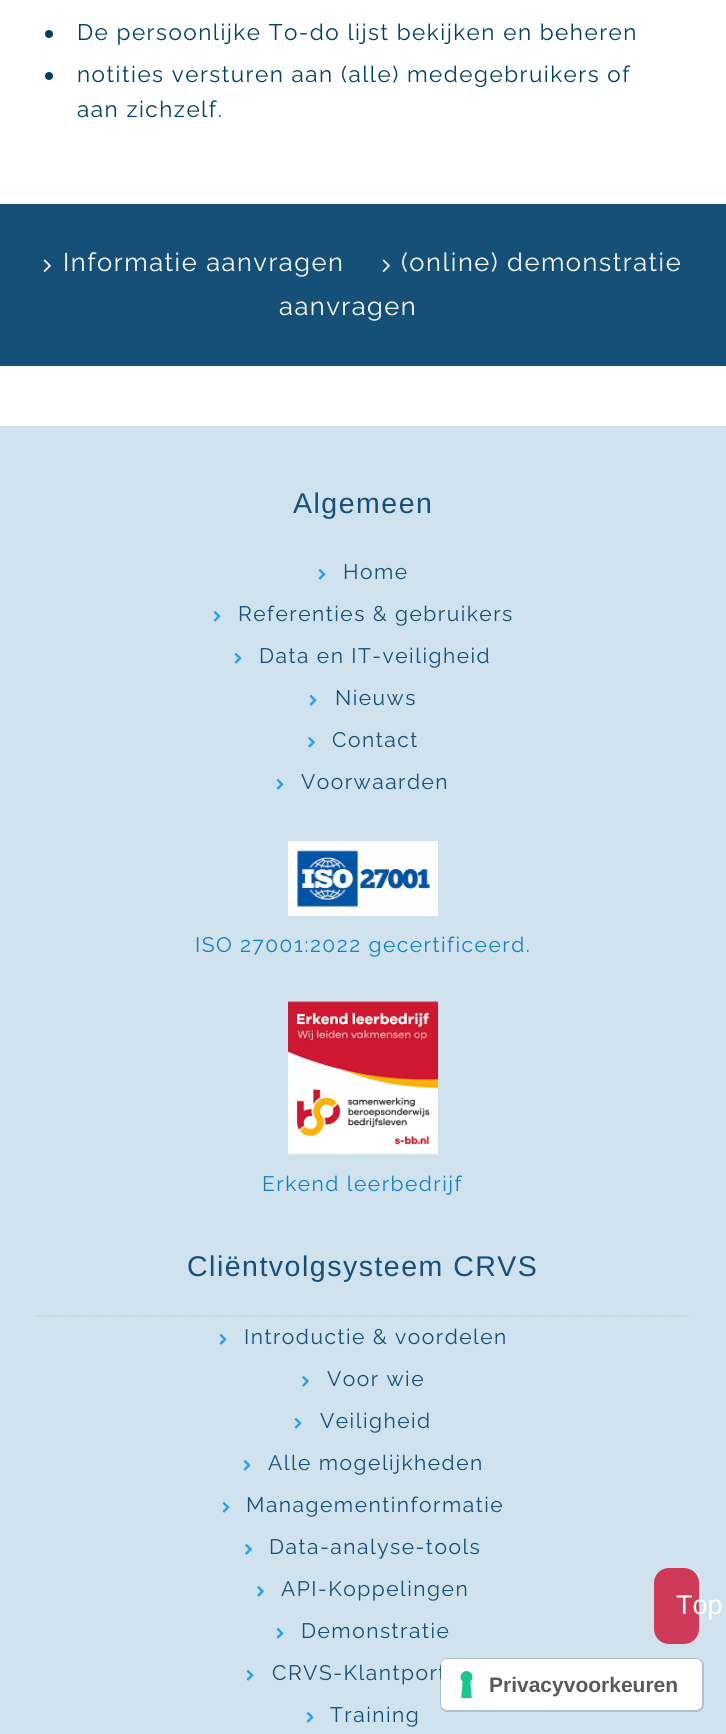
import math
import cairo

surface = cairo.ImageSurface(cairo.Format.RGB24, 726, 1734)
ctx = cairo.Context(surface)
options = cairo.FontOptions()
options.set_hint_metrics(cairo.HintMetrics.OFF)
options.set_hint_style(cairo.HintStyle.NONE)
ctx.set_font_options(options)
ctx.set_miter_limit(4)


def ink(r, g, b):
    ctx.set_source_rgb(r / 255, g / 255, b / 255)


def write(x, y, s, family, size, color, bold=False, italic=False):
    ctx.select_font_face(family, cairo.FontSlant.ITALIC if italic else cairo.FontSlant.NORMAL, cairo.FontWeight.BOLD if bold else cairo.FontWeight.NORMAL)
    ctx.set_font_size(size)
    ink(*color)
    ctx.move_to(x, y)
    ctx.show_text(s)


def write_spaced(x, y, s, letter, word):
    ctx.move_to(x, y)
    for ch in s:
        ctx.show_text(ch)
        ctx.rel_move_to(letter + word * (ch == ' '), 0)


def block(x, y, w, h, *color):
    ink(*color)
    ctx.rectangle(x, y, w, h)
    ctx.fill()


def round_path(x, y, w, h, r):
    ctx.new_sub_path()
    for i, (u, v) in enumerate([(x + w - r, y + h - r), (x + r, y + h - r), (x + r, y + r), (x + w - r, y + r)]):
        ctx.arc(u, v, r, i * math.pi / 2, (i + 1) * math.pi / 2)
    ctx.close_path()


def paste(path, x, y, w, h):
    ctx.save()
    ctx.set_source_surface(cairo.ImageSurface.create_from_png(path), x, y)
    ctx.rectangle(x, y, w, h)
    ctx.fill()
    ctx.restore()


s1 = dict(family="Liberation Sans", size=27, color=(255, 255, 255))
s2 = dict(family="Liberation Sans", size=21, color=(89, 89, 89), bold=True)

ink(255, 255, 255)
ctx.paint()
ink(0, 65, 94)
ctx.arc(49, 34, 4, 0, 2 * math.pi)
ctx.fill()
ctx.select_font_face("Raleway")
ctx.set_font_size(22.5)
write_spaced(77, 40, "De persoonlijke To-do lijst bekijken en beheren", 1.5, 0)
ctx.new_path()
ctx.arc(49, 76, 4, 0, 2 * math.pi)
ctx.fill()
write_spaced(77, 82, "notities versturen aan (alle) medegebruikers of", 1.5, 0)
write_spaced(77, 117, "aan zichzelf.", 1.5, 0)
block(0, 204, 726, 162, 21, 80, 120)
paste("pic1.png", 43, 259, 8, 13)
ctx.set_font_size(25.5)
ink(255, 255, 255)
write_spaced(63, 271, "Informatie aanvragen", 1.5, 0)
paste("pic1.png", 382, 259, 8, 13)
write_spaced(401, 271, "(online) demonstratie", 1.5, 0)
write_spaced(279, 315, "aanvragen", 1.5, 0)
block(0, 426, 726, 1308, 207, 226, 237)
ctx.select_font_face("Liberation Sans")
ctx.set_font_size(28.5)
ink(21, 80, 120)
write_spaced(293, 513, "Algemeen", 1.5, 0)
paste("pic2.png", 318, 568, 8, 12)
ctx.select_font_face("Raleway")
ctx.set_font_size(21)
write_spaced(343, 579, "Home", 1.5, 0)
paste("pic2.png", 213, 610, 8, 12)
write_spaced(238, 621, "Referenties & gebruikers", 1.5, 0)
paste("pic2.png", 234, 652, 8, 12)
write_spaced(259, 663, "Data en IT-veiligheid", 1.5, 0)
paste("pic2.png", 309, 694, 8, 12)
write_spaced(335, 705, "Nieuws", 1.5, 0)
paste("pic3.png", 308, 736, 7, 12)
write_spaced(332, 747, "Contact", 1.5, 0)
paste("pic2.png", 276, 778, 8, 12)
write_spaced(301, 789, "Voorwaarden", 1.5, 0)
paste("pic4.png", 288, 841, 150, 75)
ink(18, 131, 193)
write_spaced(195, 952, "ISO 27001:2022 gecertificeerd.", 1.5, 0)
paste("pic5.png", 288, 1001, 150, 154)
write_spaced(262, 1191, "Erkend leerbedrijf", 1.5, 0)
ctx.select_font_face("Liberation Sans")
ctx.set_font_size(28.5)
ink(21, 80, 120)
write_spaced(187, 1276, "Cliëntvolgsysteem CRVS", 1.5, 0)
ctx.new_path()
ctx.move_to(36, 1316)
ctx.line_to(690, 1316)
ink(204, 204, 204)
ctx.set_line_width(1.5)
ctx.set_dash([1.5, 1.5])
ctx.stroke()
paste("pic2.png", 219, 1333, 8, 12)
ctx.select_font_face("Raleway")
ctx.set_font_size(21)
ink(21, 80, 120)
write_spaced(244, 1344, "Introductie & voordelen", 1.5, 0)
paste("pic3.png", 302, 1375, 7, 12)
write_spaced(327, 1386, "Voor wie", 1.5, 0)
paste("pic2.png", 294, 1417, 8, 12)
write_spaced(320, 1428, "Veiligheid", 1.5, 0)
paste("pic2.png", 243, 1459, 8, 12)
write_spaced(268, 1470, "Alle mogelijkheden", 1.5, 0)
paste("pic2.png", 222, 1501, 8, 12)
write_spaced(246, 1512, "Managementinformatie", 1.5, 0)
paste("pic3.png", 245, 1543, 7, 12)
write_spaced(269, 1554, "Data-analyse-tools", 1.5, 0)
paste("pic3.png", 257, 1585, 7, 12)
write_spaced(281, 1596, "API-Koppelingen", 1.5, 0)
paste("pic2.png", 276, 1627, 8, 12)
write_spaced(301, 1638, "Demonstratie", 1.5, 0)
paste("pic2.png", 246, 1669, 8, 12)
write_spaced(272, 1680, "CRVS-Klantport", 1.5, 0)
paste("pic2.png", 306, 1711, 8, 12)
write_spaced(330, 1722, "Training", 1.5, 0)
ink(207, 58, 89)
round_path(654, 1568, 45, 76, 15)
ctx.fill()
write(676, 1614, "Top", **s1)
round_path(441, 1659, 262, 52, 7)
ctx.set_source_rgba(0, 0, 0, 0.15)
ctx.set_line_width(2)
ctx.set_dash([])
ctx.stroke()
ink(255, 255, 255)
round_path(441, 1659, 261, 51, 6)
ctx.fill()
paste("pic6.png", 460, 1671, 13, 27)
write(489, 1692, "Privacyvoorkeuren", **s2)
surface.write_to_png("screenshot.png")
